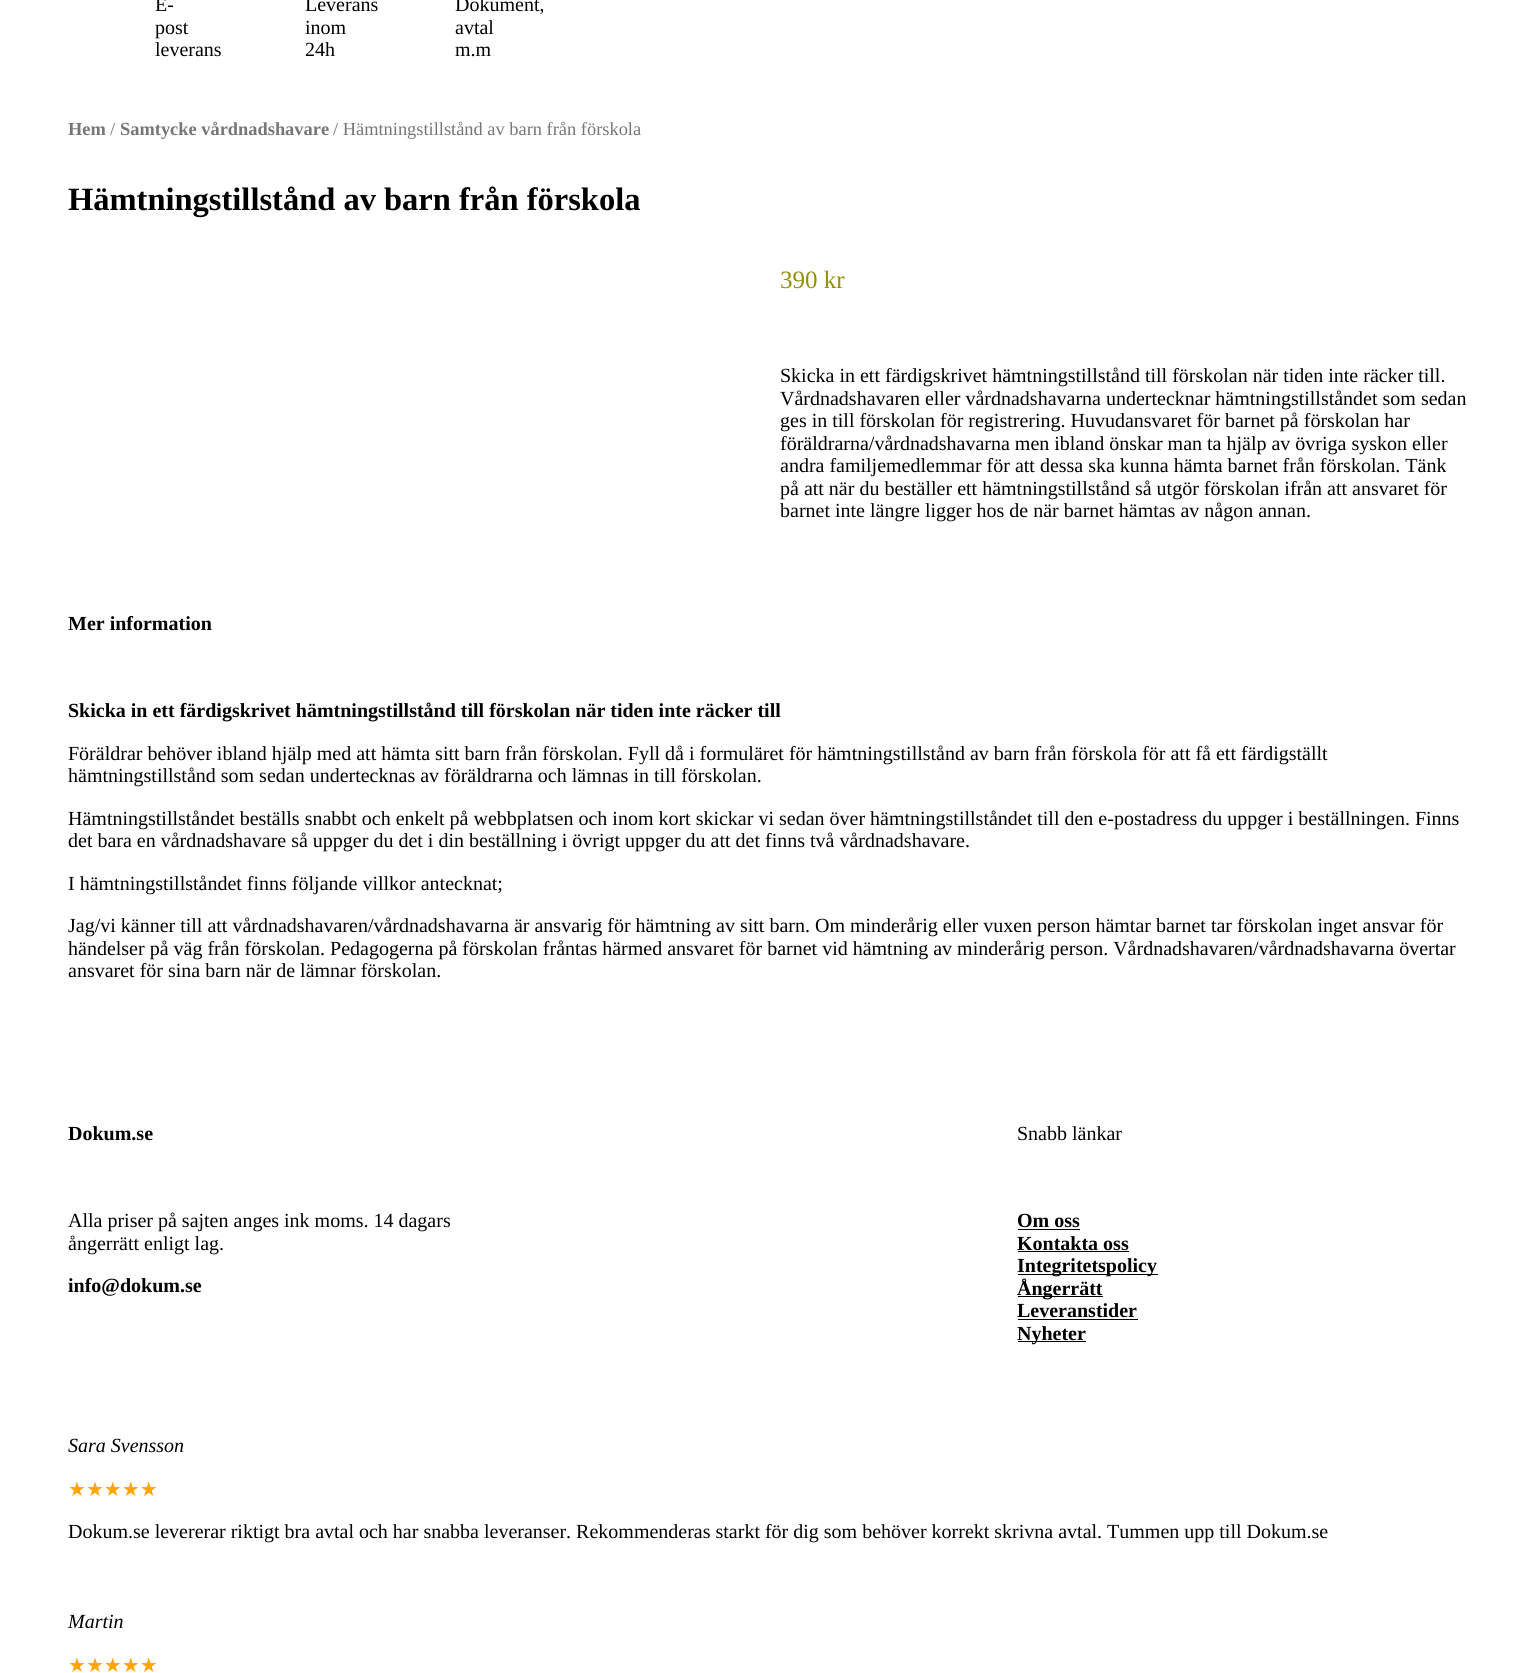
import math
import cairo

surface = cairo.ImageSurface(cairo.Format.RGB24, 1534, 1673)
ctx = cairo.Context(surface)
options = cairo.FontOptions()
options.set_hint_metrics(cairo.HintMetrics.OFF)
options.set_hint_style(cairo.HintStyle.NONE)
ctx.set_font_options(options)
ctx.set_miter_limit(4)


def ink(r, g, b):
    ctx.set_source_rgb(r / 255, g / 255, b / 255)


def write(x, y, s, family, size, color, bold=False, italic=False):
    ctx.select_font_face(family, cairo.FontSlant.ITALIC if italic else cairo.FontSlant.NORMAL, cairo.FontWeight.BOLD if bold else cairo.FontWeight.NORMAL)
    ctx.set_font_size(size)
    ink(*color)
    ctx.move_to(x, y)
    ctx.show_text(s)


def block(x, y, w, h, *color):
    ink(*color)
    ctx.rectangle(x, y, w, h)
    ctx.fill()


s1 = dict(family="Liberation Serif", size=20, color=(0, 0, 0))
s2 = dict(family="Liberation Serif", size=18.4, color=(118, 118, 118), bold=True)
s3 = dict(family="Liberation Serif", size=18.4, color=(118, 118, 118))
s4 = dict(family="Liberation Serif", size=32.5, color=(0, 0, 0), bold=True)
s5 = dict(family="Liberation Serif", size=25, color=(149, 142, 9))
s6 = dict(family="Liberation Serif", size=20, color=(0, 0, 0), bold=True)
s7 = dict(family="Liberation Serif", size=20, color=(0, 0, 0), italic=True)
s8 = dict(family="DejaVu Sans", size=20, color=(255, 165, 0))

ink(255, 255, 255)
ctx.paint()
write(155, 11, "E-", **s1)
write(155, 34, "post", **s1)
write(155, 56, "leverans", **s1)
write(305, 11, "Leverans", **s1)
write(305, 34, "inom", **s1)
write(305, 56, "24h", **s1)
write(455, 11, "Dokument,", **s1)
write(455, 34, "avtal", **s1)
write(455, 56, "m.m", **s1)
write(68, 135, "Hem", **s2)
write(110, 135, "/", **s3)
write(120, 135, "Samtycke vårdnadshavare", **s2)
write(333, 135, "/ Hämtningstillstånd av barn från förskola", **s3)
write(68, 210, "Hämtningstillstånd av barn från förskola", **s4)
write(780, 288, "390 kr", **s5)
write(780, 382, "Skicka in ett färdigskrivet hämtningstillstånd till förskolan när tiden inte räcker till.", **s1)
write(780, 405, "Vårdnadshavaren eller vårdnadshavarna undertecknar hämtningstillståndet som sedan", **s1)
write(780, 427, "ges in till förskolan för registrering. Huvudansvaret för barnet på förskolan har", **s1)
write(780, 450, "föräldrarna/vårdnadshavarna men ibland önskar man ta hjälp av övriga syskon eller", **s1)
write(780, 472, "andra familjemedlemmar för att dessa ska kunna hämta barnet från förskolan. Tänk", **s1)
write(780, 495, "på att när du beställer ett hämtningstillstånd så utgör förskolan ifrån att ansvaret för", **s1)
write(780, 517, "barnet inte längre ligger hos de när barnet hämtas av någon annan.", **s1)
write(68, 630, "Mer information", **s6)
write(68, 717, "Skicka in ett färdigskrivet hämtningstillstånd till förskolan när tiden inte räcker till", **s6)
write(68, 760, "Föräldrar behöver ibland hjälp med att hämta sitt barn från förskolan. Fyll då i formuläret för hämtningstillstånd av barn från förskola för att få ett färdigställt", **s1)
write(68, 782, "hämtningstillstånd som sedan undertecknas av föräldrarna och lämnas in till förskolan.", **s1)
write(68, 825, "Hämtningstillståndet beställs snabbt och enkelt på webbplatsen och inom kort skickar vi sedan över hämtningstillståndet till den e-postadress du uppger i beställningen. Finns", **s1)
write(68, 847, "det bara en vårdnadshavare så uppger du det i din beställning i övrigt uppger du att det finns två vårdnadshavare.", **s1)
write(68, 890, "I hämtningstillståndet finns följande villkor antecknat;", **s1)
write(68, 932, "Jag/vi känner till att vårdnadshavaren/vårdnadshavarna är ansvarig för hämtning av sitt barn. Om minderårig eller vuxen person hämtar barnet tar förskolan inget ansvar för", **s1)
write(68, 955, "händelser på väg från förskolan. Pedagogerna på förskolan fråntas härmed ansvaret för barnet vid hämtning av minderårig person. Vårdnadshavaren/vårdnadshavarna övertar", **s1)
write(68, 977, "ansvaret för sina barn när de lämnar förskolan.", **s1)
write(68, 1140, "Dokum.se", **s6)
write(68, 1227, "Alla priser på sajten anges ink moms. 14 dagars", **s1)
write(68, 1250, "ångerrätt enligt lag.", **s1)
write(68, 1292, "info@dokum.se", **s6)
write(1017, 1140, "Snabb länkar", **s1)
write(1017, 1227, "Om oss", **s6)
block(1018, 1229, 62, 1, 0, 0, 0)
write(1017, 1250, "Kontakta oss", **s6)
block(1018, 1251, 111, 1, 0, 0, 0)
block(1018, 1274, 140, 1, 0, 0, 0)
write(1017, 1272, "Integritetspolicy", **s6)
block(1018, 1296, 85, 1, 0, 0, 0)
write(1017, 1295, "Ångerrätt", **s6)
write(1017, 1317, "Leveranstider", **s6)
block(1018, 1319, 120, 1, 0, 0, 0)
block(1018, 1341, 68, 1, 0, 0, 0)
write(1017, 1340, "Nyheter", **s6)
write(68, 1452, "Sara Svensson", **s7)
write(68, 1496, "★★★★★", **s8)
write(68, 1538, "Dokum.se levererar riktigt bra avtal och har snabba leveranser. Rekommenderas starkt för dig som behöver korrekt skrivna avtal. Tummen upp till Dokum.se", **s1)
write(68, 1628, "Martin", **s7)
write(68, 1672, "★★★★★", **s8)
surface.write_to_png("screenshot.png")
